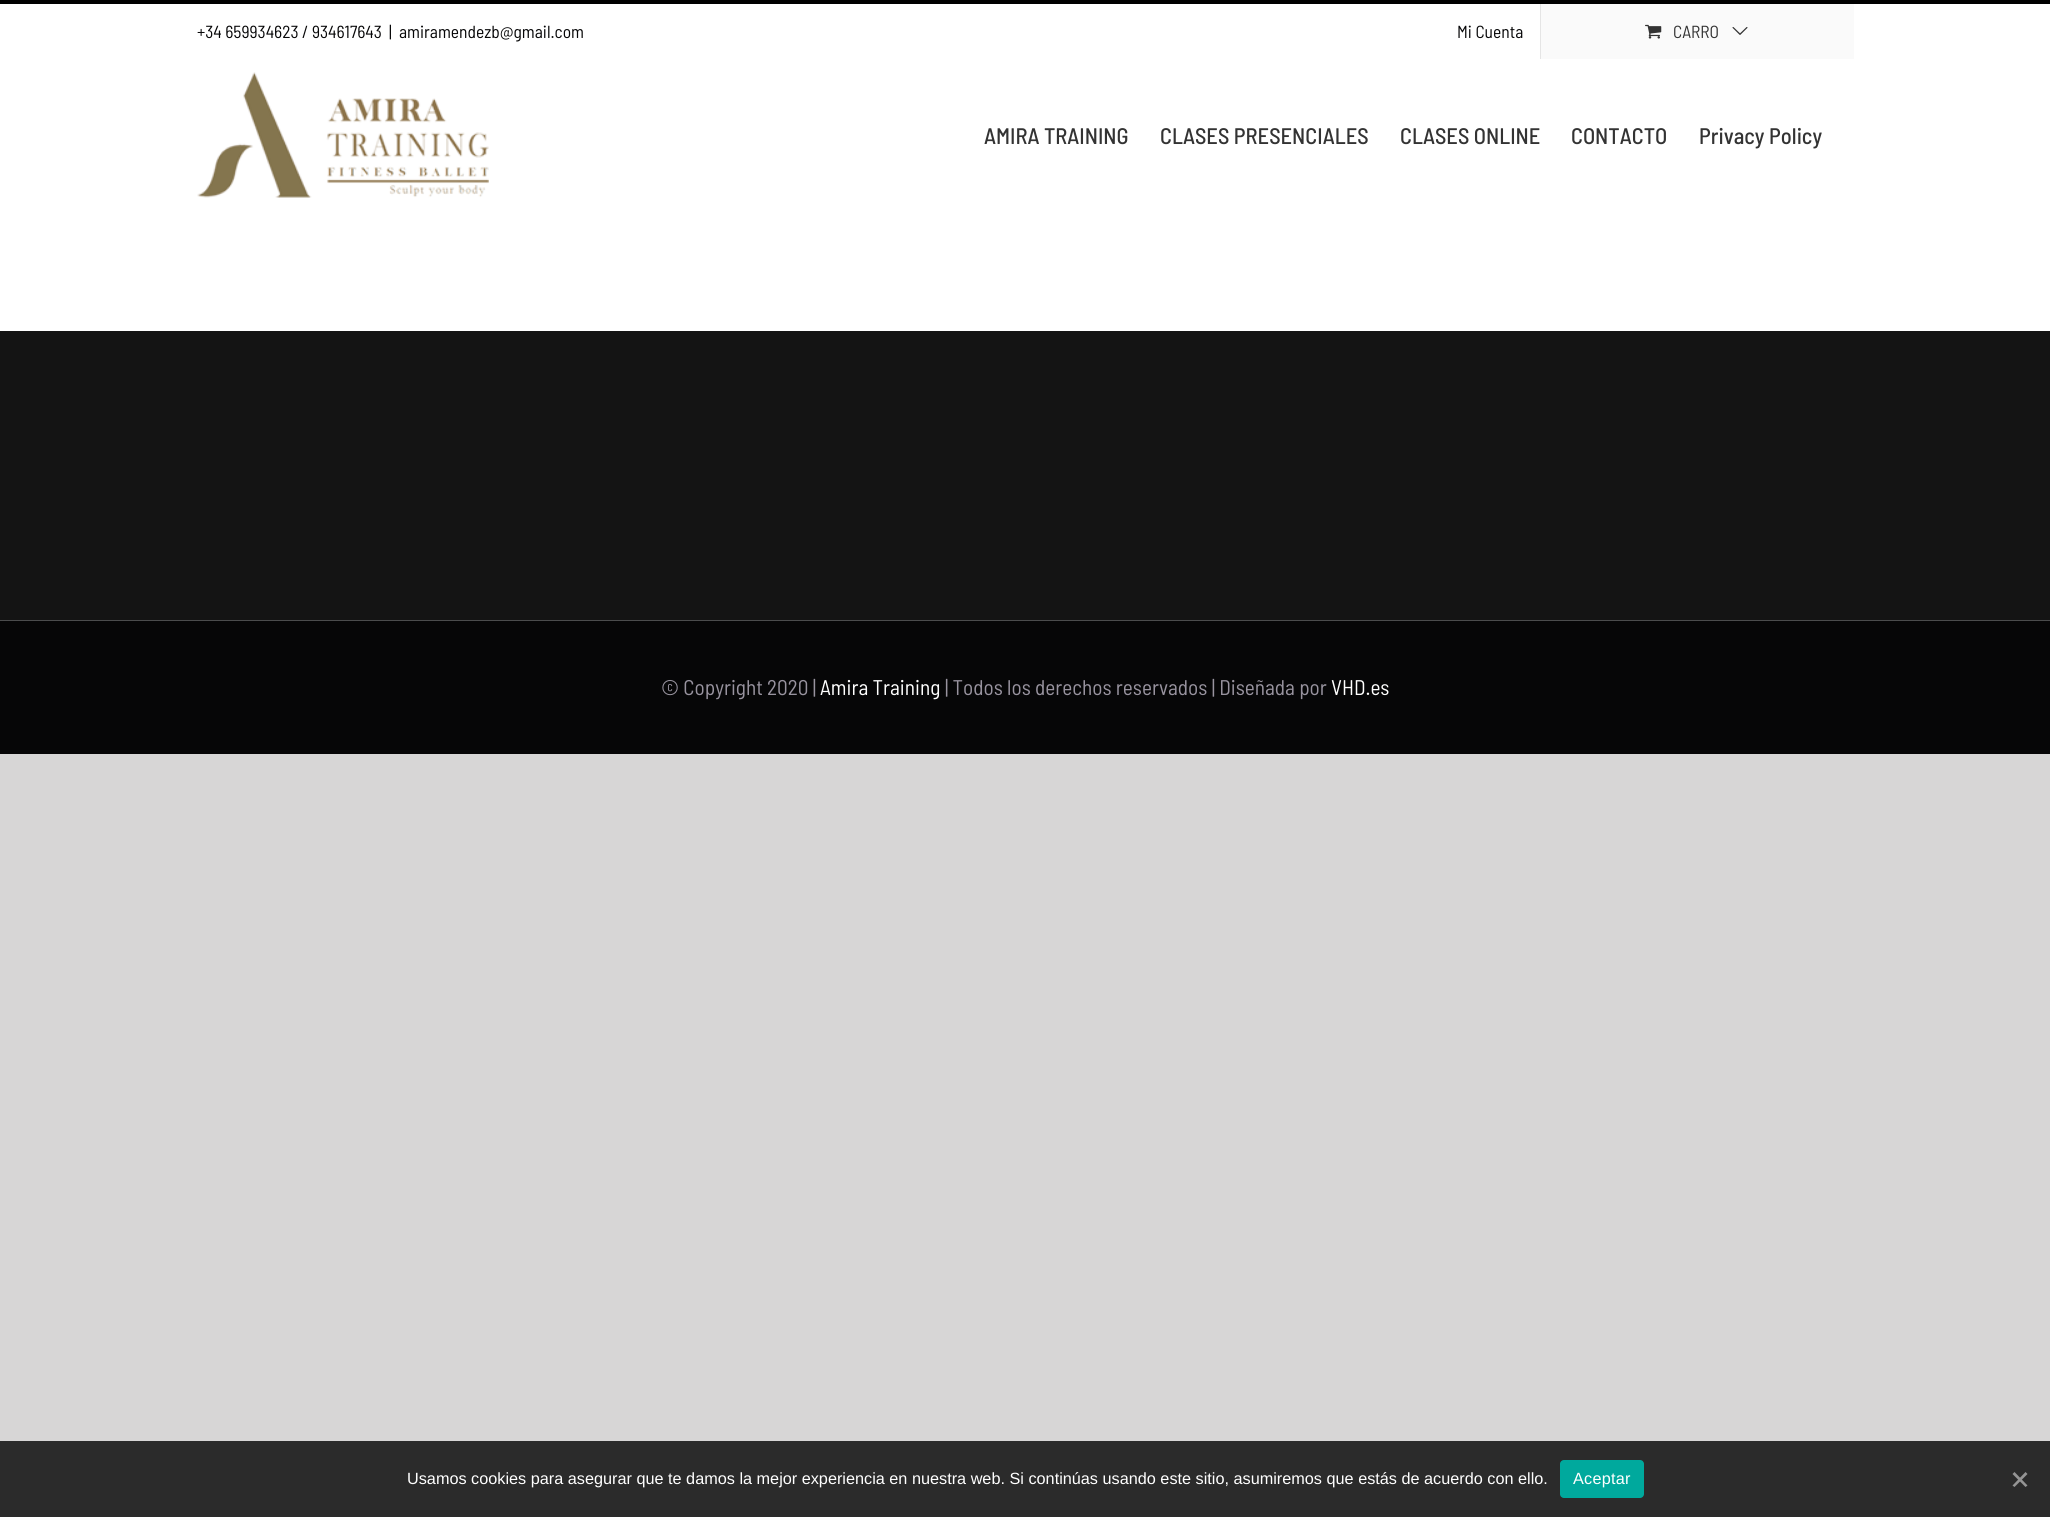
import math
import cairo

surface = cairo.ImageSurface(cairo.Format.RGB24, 2050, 1517)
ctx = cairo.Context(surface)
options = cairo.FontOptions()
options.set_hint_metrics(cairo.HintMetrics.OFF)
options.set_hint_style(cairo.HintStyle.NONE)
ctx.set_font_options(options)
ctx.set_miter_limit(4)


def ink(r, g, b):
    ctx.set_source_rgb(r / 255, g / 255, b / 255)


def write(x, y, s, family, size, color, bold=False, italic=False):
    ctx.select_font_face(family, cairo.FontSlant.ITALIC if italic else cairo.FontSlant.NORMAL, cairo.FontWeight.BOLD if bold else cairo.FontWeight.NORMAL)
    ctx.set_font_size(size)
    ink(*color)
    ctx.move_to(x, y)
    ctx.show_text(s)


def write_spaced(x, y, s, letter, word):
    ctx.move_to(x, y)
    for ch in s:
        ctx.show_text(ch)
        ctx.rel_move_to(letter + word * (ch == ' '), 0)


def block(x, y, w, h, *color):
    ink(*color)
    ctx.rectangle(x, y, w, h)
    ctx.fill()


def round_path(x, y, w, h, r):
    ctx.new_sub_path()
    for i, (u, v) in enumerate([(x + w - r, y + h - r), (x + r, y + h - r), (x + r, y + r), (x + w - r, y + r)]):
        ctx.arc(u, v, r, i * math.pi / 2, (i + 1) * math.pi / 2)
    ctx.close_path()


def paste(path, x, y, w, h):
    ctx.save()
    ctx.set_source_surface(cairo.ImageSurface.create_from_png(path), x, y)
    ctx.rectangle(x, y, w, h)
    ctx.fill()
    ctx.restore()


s1 = dict(family="Barlow Semi Condensed", size=17.5, color=(6, 6, 7))
s2 = dict(family="Barlow Semi Condensed", size=17.5, color=(51, 51, 51))
s3 = dict(family="Barlow Semi Condensed Medium", size=22.5, color=(51, 51, 51))
s4 = dict(family="Barlow Semi Condensed", size=21.25, color=(152, 147, 159))
s5 = dict(family="Barlow Semi Condensed", size=21.25, color=(255, 255, 255))
s6 = dict(family="Liberation Sans", size=16.25, color=(255, 255, 255))

ink(215, 214, 214)
ctx.paint()
block(0, 4, 2050, 327, 255, 255, 255)
block(0, 0, 2050, 4, 0, 0, 0)
write(197, 38, "+34 659934623 / 934617643", **s1)
write(389, 38, "|", **s1)
write(399, 38, "amiramendezb@gmail.com", **s1)
write(1457, 38, "Mi Cuenta", **s1)
block(1540, 4, 1, 55, 229, 229, 229)
block(1541, 4, 313, 55, 250, 250, 250)
paste("pic1.png", 1645, 24, 17, 15)
write(1673, 38, "CARRO", **s2)
paste("pic2.png", 1732, 27, 16, 8)
paste("pic3.png", 197, 72, 292, 126)
write(984, 144, "AMIRA TRAINING", **s3)
write(1160, 144, "CLASES PRESENCIALES", **s3)
write(1400, 144, "CLASES ONLINE", **s3)
write(1571, 144, "CONTACTO", **s3)
write(1699, 144, "Privacy Policy", **s3)
block(0, 331, 2050, 289, 20, 20, 20)
block(0, 621, 2050, 133, 6, 6, 7)
block(0, 620, 2050, 1, 75, 76, 77)
write(661, 695, "© Copyright 2020 |", **s4)
write(820, 695, "Amira Training", **s5)
write(945, 695, "| Todos los derechos reservados | Diseñada por", **s4)
write(1331, 695, "VHD.es", **s5)
block(0, 1441, 2050, 76, 43, 43, 43)
write(407, 1484, "Usamos cookies para asegurar que te damos la mejor experiencia en nuestra web. Si continúas usando este sitio, asumiremos que estás de acuerdo con ello.", **s6)
ink(0, 169, 157)
round_path(1560, 1460, 84, 38, 4)
ctx.fill()
ink(255, 255, 255)
write_spaced(1573, 1484, "Aceptar", 0.25, 0)
ink(149, 149, 149)
ctx.new_path()
ctx.move_to(2025.5, 1472)
ctx.line_to(2027.5, 1474)
ctx.line_to(2014.5, 1487)
ctx.line_to(2012.5, 1485.5)
ctx.close_path()
ctx.fill()
ctx.new_path()
ctx.move_to(2012.5, 1474)
ctx.line_to(2014.5, 1472)
ctx.line_to(2027.5, 1485.5)
ctx.line_to(2025.5, 1487)
ctx.close_path()
ctx.fill()
surface.write_to_png("screenshot.png")
